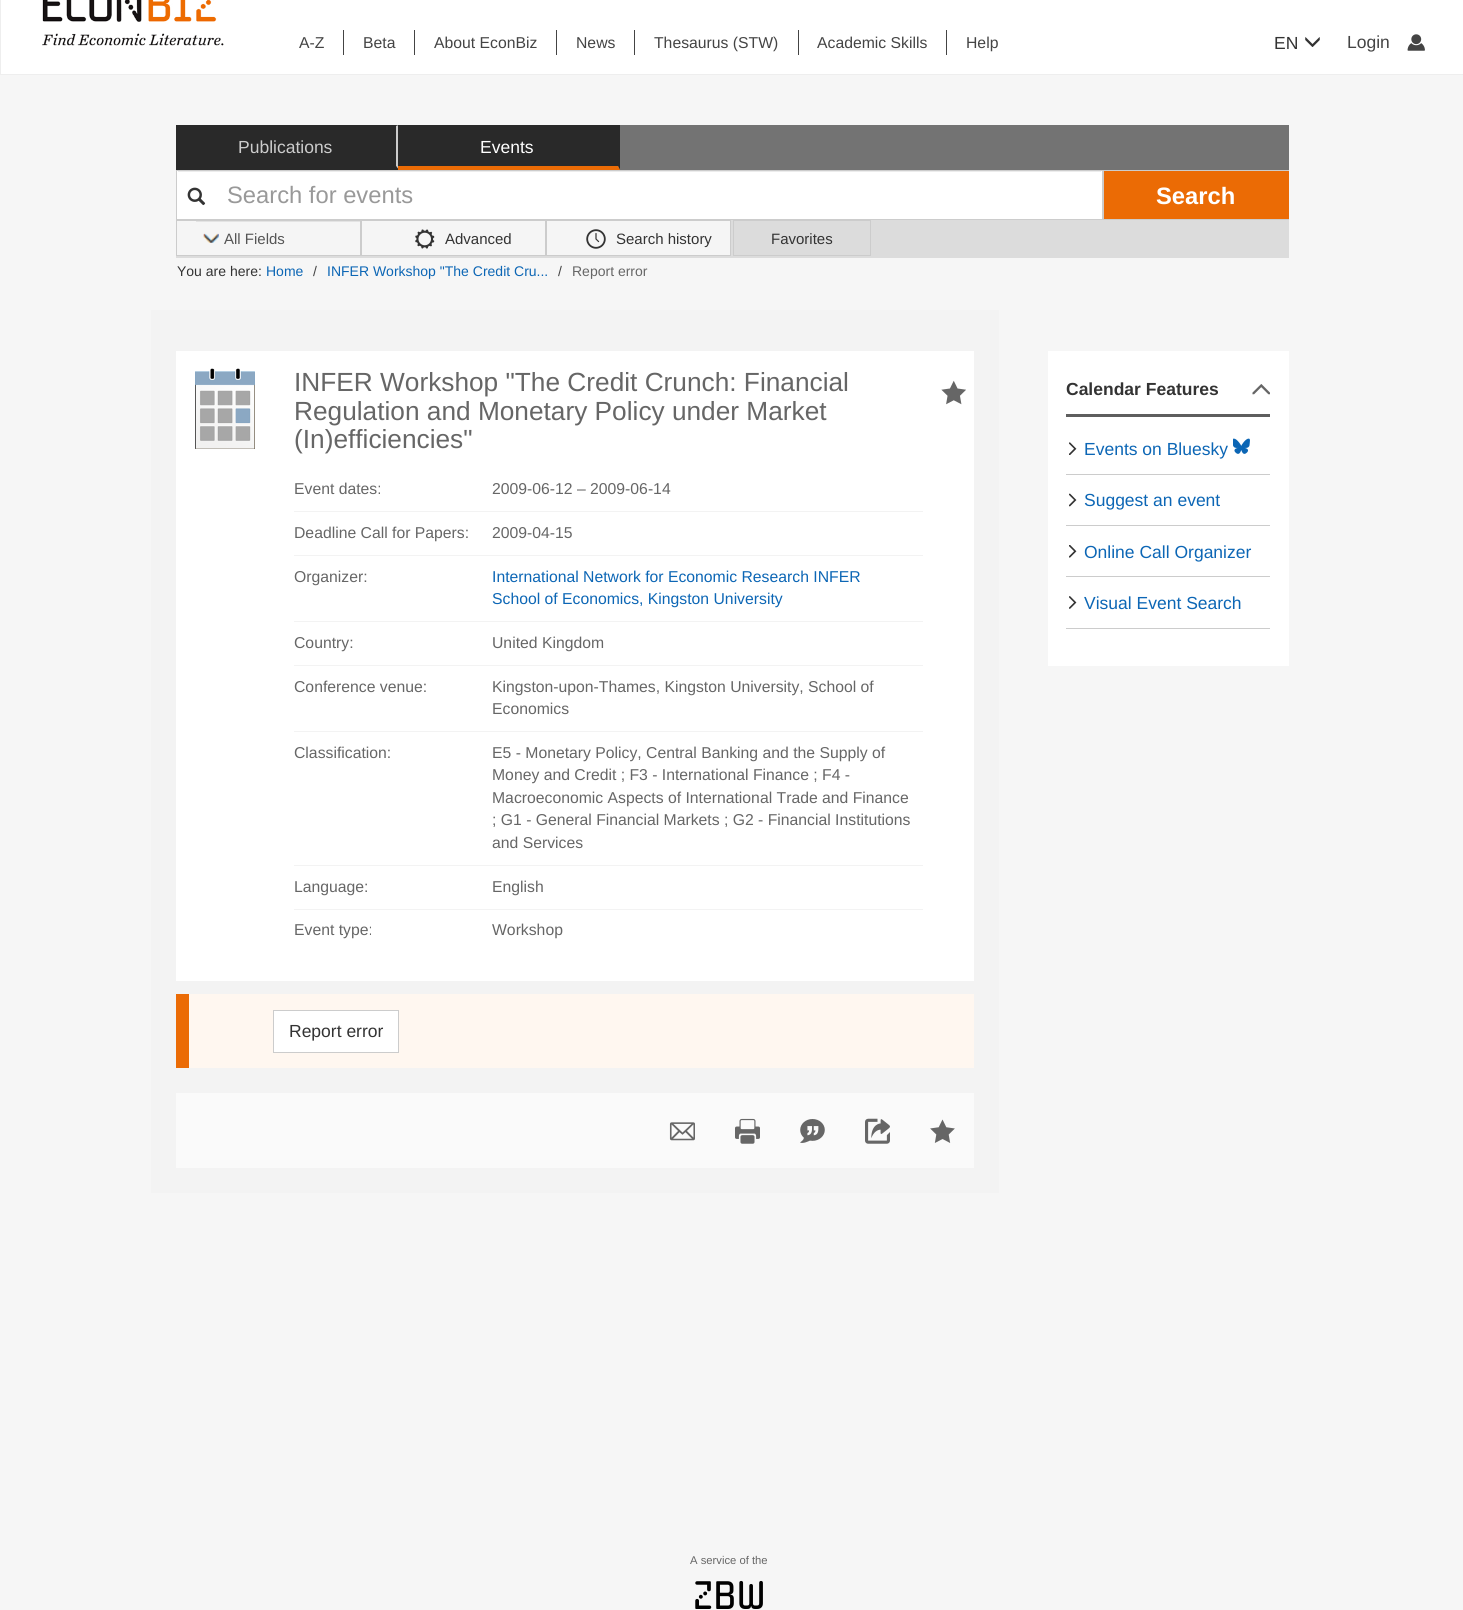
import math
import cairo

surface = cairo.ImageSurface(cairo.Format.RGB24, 1463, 1610)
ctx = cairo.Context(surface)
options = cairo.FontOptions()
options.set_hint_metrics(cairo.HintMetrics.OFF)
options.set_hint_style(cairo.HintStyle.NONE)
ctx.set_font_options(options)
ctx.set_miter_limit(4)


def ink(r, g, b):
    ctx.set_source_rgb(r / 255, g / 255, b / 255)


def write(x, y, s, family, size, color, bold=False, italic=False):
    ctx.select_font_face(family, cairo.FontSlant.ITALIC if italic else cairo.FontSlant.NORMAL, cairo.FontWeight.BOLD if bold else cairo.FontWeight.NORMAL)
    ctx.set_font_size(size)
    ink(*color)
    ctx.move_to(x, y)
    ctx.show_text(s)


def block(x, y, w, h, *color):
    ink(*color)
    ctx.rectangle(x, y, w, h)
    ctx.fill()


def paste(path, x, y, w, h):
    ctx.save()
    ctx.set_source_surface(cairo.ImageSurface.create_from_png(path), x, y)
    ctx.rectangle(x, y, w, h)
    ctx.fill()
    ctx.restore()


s1 = dict(family="Liberation Sans", size=15.75, color=(68, 68, 68))
s2 = dict(family="Liberation Sans", size=17.5, color=(51, 51, 51))
s3 = dict(family="Liberation Sans", size=17.5, color=(68, 68, 68))
s4 = dict(family="Liberation Sans", size=17.5, color=(204, 204, 204))
s5 = dict(family="Liberation Sans", size=17.5, color=(255, 255, 255))
s6 = dict(family="Liberation Sans", size=23.75, color=(153, 153, 153))
s7 = dict(family="Liberation Sans", size=23.75, color=(255, 255, 255), bold=True)
s8 = dict(family="Liberation Sans", size=15, color=(85, 85, 85))
s9 = dict(family="Liberation Sans", size=15, color=(51, 51, 51))
s10 = dict(family="Liberation Sans", size=14, color=(51, 51, 51))
s11 = dict(family="Liberation Sans", size=14, color=(12, 102, 181))
s12 = dict(family="Liberation Sans", size=14, color=(68, 68, 68))
s13 = dict(family="Liberation Sans", size=14, color=(102, 102, 102))
s14 = dict(family="Liberation Sans", size=26.25, color=(102, 102, 102))
s15 = dict(family="Liberation Sans", size=15.75, color=(102, 102, 102))
s16 = dict(family="Liberation Sans", size=15.75, color=(12, 102, 181))
s17 = dict(family="Liberation Sans", size=17.5, color=(51, 51, 51), bold=True)
s18 = dict(family="Liberation Sans", size=17.5, color=(12, 102, 181))
s19 = dict(family="Liberation Sans", size=11.25, color=(102, 102, 102))
s20 = dict(family="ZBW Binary", size=38, color=(0, 0, 0))

ink(246, 246, 246)
ctx.paint()
ink(255, 255, 255)
ctx.rectangle(0.5, -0.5, 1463, 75)
ctx.fill_preserve()
ink(238, 238, 238)
ctx.set_line_width(1)
ctx.stroke()
paste("pic1.png", 42, 0, 182, 46)
write(299, 48, "A-Z", **s1)
block(343, 30, 1, 25, 68, 68, 68)
write(363, 48, "Beta", **s1)
block(414, 30, 1, 25, 68, 68, 68)
write(434, 48, "About EconBiz", **s1)
block(556, 30, 1, 25, 68, 68, 68)
write(576, 48, "News", **s1)
block(634, 30, 1, 25, 68, 68, 68)
write(654, 48, "Thesaurus (STW)", **s1)
block(798, 30, 1, 25, 68, 68, 68)
write(817, 48, "Academic Skills", **s1)
block(946, 30, 1, 25, 68, 68, 68)
write(966, 48, "Help", **s1)
write(1274, 49, "EN", **s2)
paste("pic2.png", 1305, 37, 15, 10)
write(1347, 48, "Login", **s3)
paste("pic3.png", 1407, 34, 18, 17)
block(396, 125, 893, 45, 115, 115, 115)
block(176, 126, 220, 40, 41, 41, 41)
ctx.new_path()
ctx.move_to(176, 125)
ctx.line_to(399, 125)
ctx.line_to(396, 126)
ctx.line_to(176, 126)
ctx.close_path()
ctx.fill()
ink(204, 204, 204)
ctx.new_path()
ctx.move_to(399, 125)
ctx.line_to(399, 170)
ctx.line_to(396, 166)
ctx.line_to(396, 126)
ctx.close_path()
ctx.fill()
ink(41, 41, 41)
ctx.new_path()
ctx.move_to(399, 170)
ctx.line_to(176, 170)
ctx.line_to(176, 166)
ctx.line_to(396, 166)
ctx.close_path()
ctx.fill()
write(238, 153, "Publications", **s4)
block(398, 126, 220, 40, 41, 41, 41)
block(398, 125, 222, 1, 41, 41, 41)
ctx.new_path()
ctx.move_to(620, 125)
ctx.line_to(620, 170)
ctx.line_to(618, 166)
ctx.line_to(618, 126)
ctx.close_path()
ctx.fill()
ink(235, 107, 5)
ctx.new_path()
ctx.move_to(620, 170)
ctx.line_to(398, 170)
ctx.line_to(398, 166)
ctx.line_to(618, 166)
ctx.close_path()
ctx.fill()
write(480, 153, "Events", **s5)
block(177, 171, 925, 48, 255, 255, 255)
block(178, 171, 923, 1, 236, 236, 236)
ctx.rectangle(176.5, 170.5, 926, 49)
ink(204, 204, 204)
ctx.stroke()
paste("pic4.png", 187, 187, 19, 19)
write(227, 203, "Search for events", **s6)
block(1104, 171, 185, 48, 235, 107, 5)
block(1103, 170, 186, 1, 204, 204, 204)
block(1103, 219, 186, 1, 204, 204, 204)
block(1103, 170, 1, 50, 204, 204, 204)
write(1156, 204, "Search", **s7)
block(176, 220, 1113, 38, 220, 220, 220)
ink(245, 245, 245)
ctx.rectangle(176.5, 220.5, 184, 35)
ctx.fill_preserve()
ink(204, 204, 204)
ctx.stroke()
paste("pic5.png", 203, 233, 16, 10)
block(196, 221, 164, 1, 227, 227, 227)
write(224, 244, "All Fields", **s8)
ink(245, 245, 245)
ctx.rectangle(361.5, 220.5, 184, 35)
ctx.fill_preserve()
ink(204, 204, 204)
ctx.stroke()
paste("pic6.png", 415, 229, 20, 20)
write(445, 244, "Advanced", **s9)
ink(245, 245, 245)
ctx.rectangle(546.5, 220.5, 184, 35)
ctx.fill_preserve()
ink(204, 204, 204)
ctx.stroke()
paste("pic7.png", 586, 229, 20, 20)
write(616, 244, "Search history", **s9)
ctx.rectangle(733.5, 220.5, 137, 35)
ink(204, 204, 204)
ctx.stroke()
write(771, 244, "Favorites", **s9)
write(177, 276, "You are here:", **s10)
write(266, 276, "Home", **s11)
write(313, 276, "/", **s12)
write(327, 276, "INFER Workshop \"The Credit Cru...", **s11)
write(558, 276, "/", **s12)
write(572, 276, "Report error", **s13)
block(151, 310, 848, 883, 243, 243, 243)
block(176, 351, 798, 630, 255, 255, 255)
paste("pic8.png", 195, 368, 60, 81)
write(294, 391, "INFER Workshop \"The Credit Crunch: Financial", **s14)
write(294, 420, "Regulation and Monetary Policy under Market", **s14)
write(294, 448, "(In)efficiencies\"", **s14)
block(294, 511, 629, 1, 243, 243, 243)
write(294, 494, "Event dates:", **s15)
write(492, 494, "2009-06-12 – 2009-06-14", **s15)
block(294, 555, 629, 1, 243, 243, 243)
write(294, 538, "Deadline Call for Papers:", **s15)
write(492, 538, "2009-04-15", **s15)
block(294, 621, 629, 1, 243, 243, 243)
write(294, 582, "Organizer:", **s15)
write(492, 582, "International Network for Economic Research INFER", **s16)
write(492, 604, "School of Economics, Kingston University", **s16)
block(294, 665, 629, 1, 243, 243, 243)
write(294, 648, "Country:", **s15)
write(492, 648, "United Kingdom", **s15)
block(294, 731, 629, 1, 243, 243, 243)
write(294, 692, "Conference venue:", **s15)
write(492, 692, "Kingston-upon-Thames, Kingston University, School of", **s15)
write(492, 714, "Economics", **s15)
block(294, 865, 629, 1, 243, 243, 243)
write(294, 758, "Classification:", **s15)
write(492, 758, "E5 - Monetary Policy, Central Banking and the Supply of", **s15)
write(492, 780, "Money and Credit ; F3 - International Finance ; F4 -", **s15)
write(492, 803, "Macroeconomic Aspects of International Trade and Finance", **s15)
write(492, 825, "; G1 - General Financial Markets ; G2 - Financial Institutions", **s15)
write(492, 848, "and Services", **s15)
block(294, 909, 629, 1, 243, 243, 243)
write(294, 892, "Language:", **s15)
write(492, 892, "English", **s15)
write(294, 935, "Event type:", **s15)
write(492, 935, "Workshop", **s15)
paste("pic9.png", 941, 380, 25, 25)
block(189, 994, 785, 74, 255, 247, 240)
block(176, 994, 13, 74, 235, 107, 5)
ink(255, 255, 255)
ctx.rectangle(273.5, 1010.5, 125, 42)
ctx.fill_preserve()
ink(204, 204, 204)
ctx.stroke()
write(289, 1037, "Report error", **s2)
block(176, 1093, 798, 75, 250, 250, 250)
paste("pic10.png", 669, 1122, 26, 19)
paste("pic11.png", 735, 1118, 25, 26)
paste("pic12.png", 800, 1119, 25, 24)
paste("pic13.png", 865, 1118, 25, 26)
paste("pic14.png", 930, 1119, 25, 24)
block(1048, 351, 241, 315, 255, 255, 255)
block(1066, 414, 204, 3, 94, 94, 94)
write(1066, 395, "Calendar Features", **s17)
paste("pic15.png", 1252, 384, 18, 11)
block(1066, 474, 204, 1, 204, 204, 204)
paste("pic16.png", 1069, 442, 8, 13)
write(1084, 455, "Events on Bluesky", **s18)
paste("pic17.png", 1233, 438, 17, 16)
block(1066, 525, 204, 1, 204, 204, 204)
paste("pic18.png", 1069, 493, 8, 14)
write(1084, 506, "Suggest an event", **s18)
block(1066, 576, 204, 1, 204, 204, 204)
paste("pic19.png", 1069, 545, 8, 13)
write(1084, 558, "Online Call Organizer", **s18)
block(1066, 628, 204, 1, 204, 204, 204)
paste("pic20.png", 1069, 596, 8, 13)
write(1084, 609, "Visual Event Search", **s18)
write(690, 1564, "A service of the", **s19)
write(693, 1609, "zbw", **s20)
surface.write_to_png("screenshot.png")
